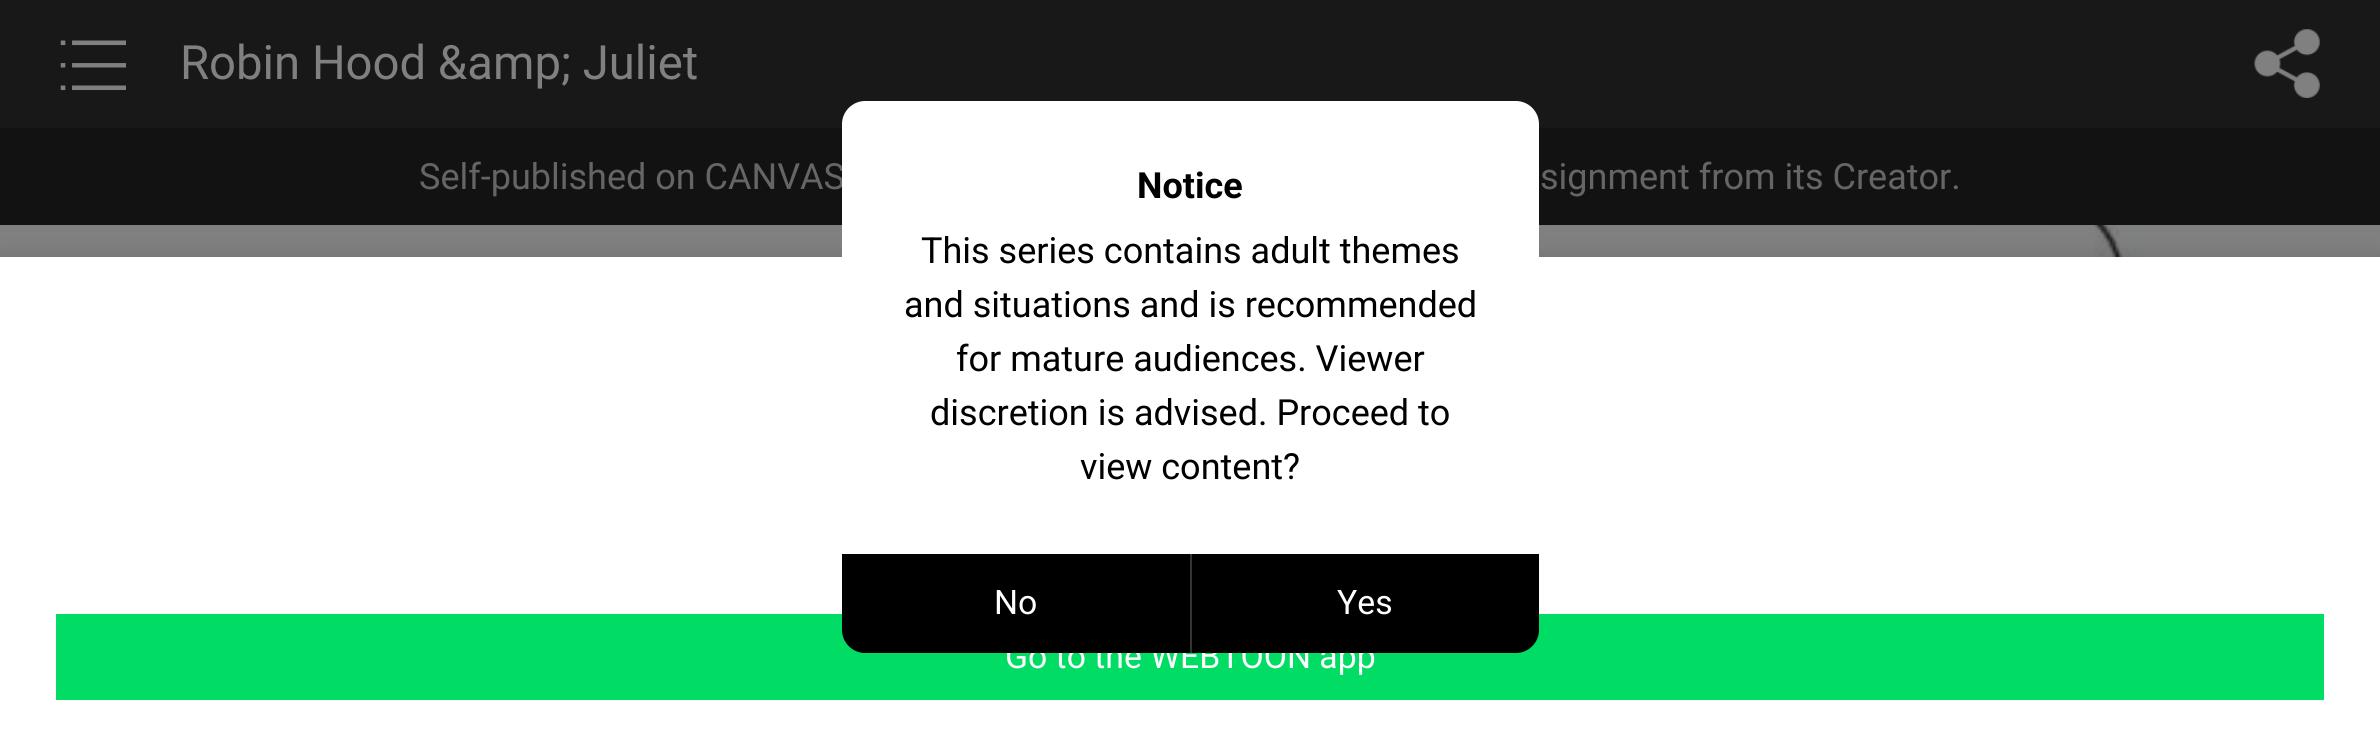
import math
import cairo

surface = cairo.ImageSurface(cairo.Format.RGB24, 2380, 752)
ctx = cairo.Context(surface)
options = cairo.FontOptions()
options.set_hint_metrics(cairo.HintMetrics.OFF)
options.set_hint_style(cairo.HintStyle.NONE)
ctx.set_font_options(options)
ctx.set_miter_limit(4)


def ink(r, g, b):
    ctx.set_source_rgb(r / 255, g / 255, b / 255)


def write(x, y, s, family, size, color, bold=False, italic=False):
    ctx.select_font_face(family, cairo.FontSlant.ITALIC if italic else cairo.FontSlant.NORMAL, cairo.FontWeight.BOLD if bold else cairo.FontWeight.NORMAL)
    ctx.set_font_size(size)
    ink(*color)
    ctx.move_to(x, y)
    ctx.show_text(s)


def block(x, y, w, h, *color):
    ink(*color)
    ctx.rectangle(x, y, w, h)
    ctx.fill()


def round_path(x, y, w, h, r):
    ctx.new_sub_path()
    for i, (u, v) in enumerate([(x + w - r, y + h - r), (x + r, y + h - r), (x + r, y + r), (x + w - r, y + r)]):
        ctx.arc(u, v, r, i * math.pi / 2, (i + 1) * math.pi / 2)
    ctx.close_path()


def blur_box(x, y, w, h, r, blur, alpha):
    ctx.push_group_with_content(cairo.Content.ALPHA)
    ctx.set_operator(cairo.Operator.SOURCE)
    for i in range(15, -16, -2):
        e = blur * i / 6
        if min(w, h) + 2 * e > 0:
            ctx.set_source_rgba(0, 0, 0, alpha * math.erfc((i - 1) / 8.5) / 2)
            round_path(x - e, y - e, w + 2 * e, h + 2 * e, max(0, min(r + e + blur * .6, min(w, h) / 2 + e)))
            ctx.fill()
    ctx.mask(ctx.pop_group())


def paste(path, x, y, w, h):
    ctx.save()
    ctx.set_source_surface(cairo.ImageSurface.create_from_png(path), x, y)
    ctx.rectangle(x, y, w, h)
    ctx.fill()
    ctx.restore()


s1 = dict(family="Roboto", size=47.25, color=(128, 128, 128))
s2 = dict(family="Roboto", size=36, color=(101, 101, 101))
s3 = dict(family="Roboto", size=36, color=(0, 0, 0), bold=True)
s4 = dict(family="Roboto", size=36, color=(0, 0, 0))
s5 = dict(family="Roboto", size=33.75, color=(255, 255, 255))

ink(128, 128, 128)
ctx.paint()
block(0, 0, 2380, 128, 24, 24, 24)
paste("pic1.png", 60, 40, 66, 50)
write(180, 79, "Robin Hood &amp; Juliet", **s1)
paste("pic2.png", 2254, 29, 66, 70)
block(0, 128, 2380, 97, 18, 18, 18)
write(419, 189, "Self-published on CANVAS", **s2)
write(1540, 189, "signment from its Creator.", **s2)
paste("pic3.png", 1539, 225, 604, 32)
ink(0, 0, 0)
blur_box(0, 261, 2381, 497, 0, 11, 0.2)
block(0, 257, 2380, 495, 255, 255, 255)
ctx.new_path()
ctx.move_to(865, 101)
ctx.line_to(1516, 101)
ctx.curve_to(1528.5, 101, 1539, 111.5, 1539, 124)
ctx.line_to(1539, 554)
ctx.line_to(842, 554)
ctx.line_to(842, 124)
ctx.curve_to(842, 111.5, 852.5, 101, 865, 101)
ctx.close_path()
ctx.fill()
write(1137, 198, "Notice", **s3)
write(921, 263, "This series contains adult themes", **s4)
write(904, 317, "and situations and is recommended", **s4)
write(956, 371, "for mature audiences. Viewer", **s4)
write(930, 425, "discretion is advised. Proceed to", **s4)
write(1080, 479, "view content?", **s4)
block(56, 614, 2268, 86, 0, 220, 100)
write(1005, 668, "Go to the WEBTOON app", **s5)
ink(0, 0, 0)
ctx.new_path()
ctx.move_to(842, 554)
ctx.line_to(1539, 554)
ctx.line_to(1539, 630)
ctx.curve_to(1539, 642.5, 1528.5, 653, 1516, 653)
ctx.line_to(865, 653)
ctx.curve_to(852.5, 653, 842, 642.5, 842, 630)
ctx.close_path()
ctx.fill()
write(994, 614, "No", **s5)
block(1190, 554, 2, 99, 51, 51, 51)
write(1337, 614, "Yes", **s5)
surface.write_to_png("screenshot.png")
